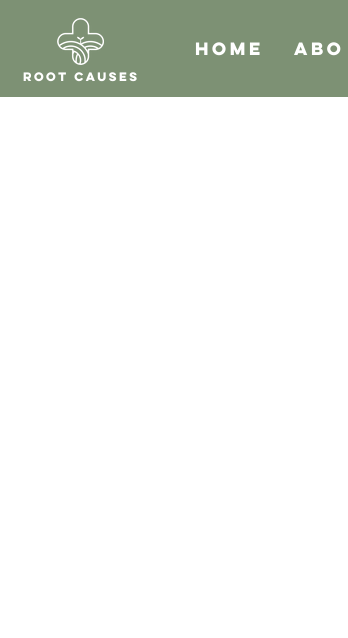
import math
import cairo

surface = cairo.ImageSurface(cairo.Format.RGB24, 348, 638)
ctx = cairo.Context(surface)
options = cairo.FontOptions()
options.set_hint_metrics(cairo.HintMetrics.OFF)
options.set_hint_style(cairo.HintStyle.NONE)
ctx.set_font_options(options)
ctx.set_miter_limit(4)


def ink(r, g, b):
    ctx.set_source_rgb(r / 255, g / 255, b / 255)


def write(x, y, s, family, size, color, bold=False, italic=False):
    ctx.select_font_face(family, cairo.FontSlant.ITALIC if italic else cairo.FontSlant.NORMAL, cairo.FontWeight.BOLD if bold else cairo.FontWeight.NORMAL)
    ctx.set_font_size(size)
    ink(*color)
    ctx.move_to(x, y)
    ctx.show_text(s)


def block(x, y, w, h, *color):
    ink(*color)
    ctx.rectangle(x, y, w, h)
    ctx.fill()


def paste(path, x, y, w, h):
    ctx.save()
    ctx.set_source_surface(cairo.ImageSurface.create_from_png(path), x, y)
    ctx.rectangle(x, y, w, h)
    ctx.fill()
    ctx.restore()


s1 = dict(family="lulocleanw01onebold", size=16, color=(255, 255, 255), bold=True)
s2 = dict(family="lulocleanw01onebold", size=11, color=(255, 255, 255), bold=True)

ink(255, 255, 255)
ctx.paint()
block(0, 0, 348, 97, 125, 145, 116)
write(195, 55, "Home", **s1)
write(294, 55, "Abo", **s1)
paste("pic1.png", 57, 18, 47, 47)
write(23, 81, "Root Causes", **s2)
surface.write_to_png("screenshot.png")
